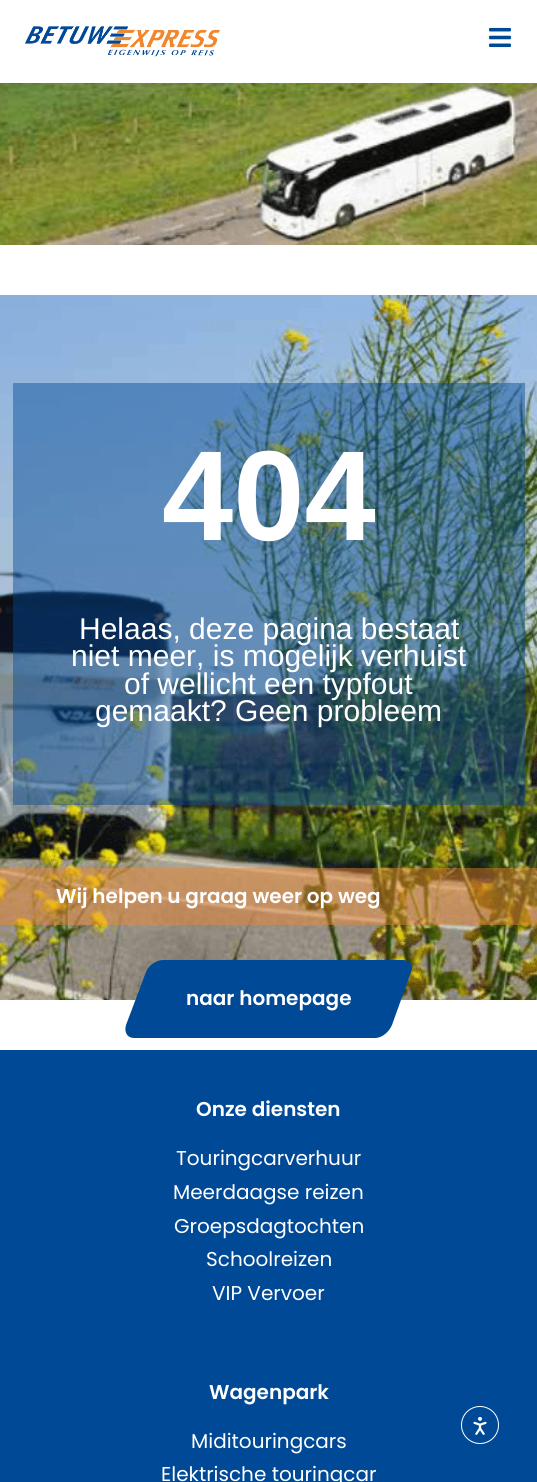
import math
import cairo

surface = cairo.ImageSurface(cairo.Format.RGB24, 537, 1482)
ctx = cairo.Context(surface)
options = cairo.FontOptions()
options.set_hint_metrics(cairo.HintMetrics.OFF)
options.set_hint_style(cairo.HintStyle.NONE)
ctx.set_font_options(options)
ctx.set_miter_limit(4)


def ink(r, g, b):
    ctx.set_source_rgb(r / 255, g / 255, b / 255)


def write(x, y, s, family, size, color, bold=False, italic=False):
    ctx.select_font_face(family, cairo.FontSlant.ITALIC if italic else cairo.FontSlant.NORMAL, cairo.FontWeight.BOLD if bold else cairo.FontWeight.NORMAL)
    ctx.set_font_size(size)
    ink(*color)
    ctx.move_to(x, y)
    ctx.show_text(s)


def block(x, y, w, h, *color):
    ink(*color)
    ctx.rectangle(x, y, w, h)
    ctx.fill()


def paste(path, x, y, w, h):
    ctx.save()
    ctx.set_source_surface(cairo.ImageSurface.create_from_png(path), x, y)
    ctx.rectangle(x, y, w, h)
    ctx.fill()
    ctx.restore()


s1 = dict(family="Liberation Sans", size=128, color=(255, 255, 255), bold=True)
s2 = dict(family="Liberation Sans", size=30, color=(255, 255, 255))
s3 = dict(family="Poppins SemiBold", size=20, color=(255, 255, 255))
s4 = dict(family="Poppins", size=20, color=(255, 255, 255))

ink(255, 255, 255)
ctx.paint()
paste("pic1.png", 25, 26, 195, 31)
paste("pic2.png", 489, 27, 22, 21)
paste("pic3.png", 0, 83, 537, 162)
paste("pic4.png", 0, 295, 537, 705)
ctx.set_source_rgba(0, 0.286, 0.588, 0.45)
ctx.rectangle(13, 383, 512, 422)
ctx.fill()
write(162, 540, "404", **s1)
write(79, 639, "Helaas, deze pagina bestaat", **s2)
write(71, 666, "niet meer, is mogelijk verhuist", **s2)
write(124, 694, "of wellicht een typfout", **s2)
write(95, 721, "gemaakt? Geen probleem", **s2)
ctx.set_source_rgba(0.945, 0.529, 0.176, 0.45)
ctx.rectangle(0, 868, 537, 57)
ctx.fill()
write(56, 903, "Wij helpen u graag weer op weg", **s3)
ink(0, 73, 150)
ctx.new_path()
ctx.move_to(163, 960)
ctx.line_to(403, 960)
ctx.curve_to(410, 960, 414, 966, 411, 972)
ctx.line_to(392, 1025)
ctx.curve_to(389, 1032, 382, 1038, 375, 1038)
ctx.line_to(134, 1038)
ctx.curve_to(127, 1038, 124, 1032, 126, 1025)
ctx.line_to(146, 972)
ctx.curve_to(148, 966, 156, 960, 163, 960)
ctx.close_path()
ctx.fill()
write(186, 1005, "naar homepage", **s3)
block(0, 1050, 537, 432, 0, 73, 150)
write(196, 1116, "Onze diensten", **s3)
write(176, 1165, "Touringcarverhuur", **s4)
write(173, 1199, "Meerdaagse reizen", **s4)
write(174, 1233, "Groepsdagtochten", **s4)
write(206, 1266, "Schoolreizen", **s4)
write(212, 1300, "VIP Vervoer", **s4)
write(209, 1399, "Wagenpark", **s3)
write(191, 1448, "Miditouringcars", **s4)
write(161, 1481, "Elektrische touringcar", **s4)
ctx.new_path()
ctx.arc(480, 1425, 18.5, 0, 2 * math.pi)
ctx.set_line_width(1)
ctx.stroke()
paste("pic5.png", 473, 1416, 14, 19)
surface.write_to_png("screenshot.png")
